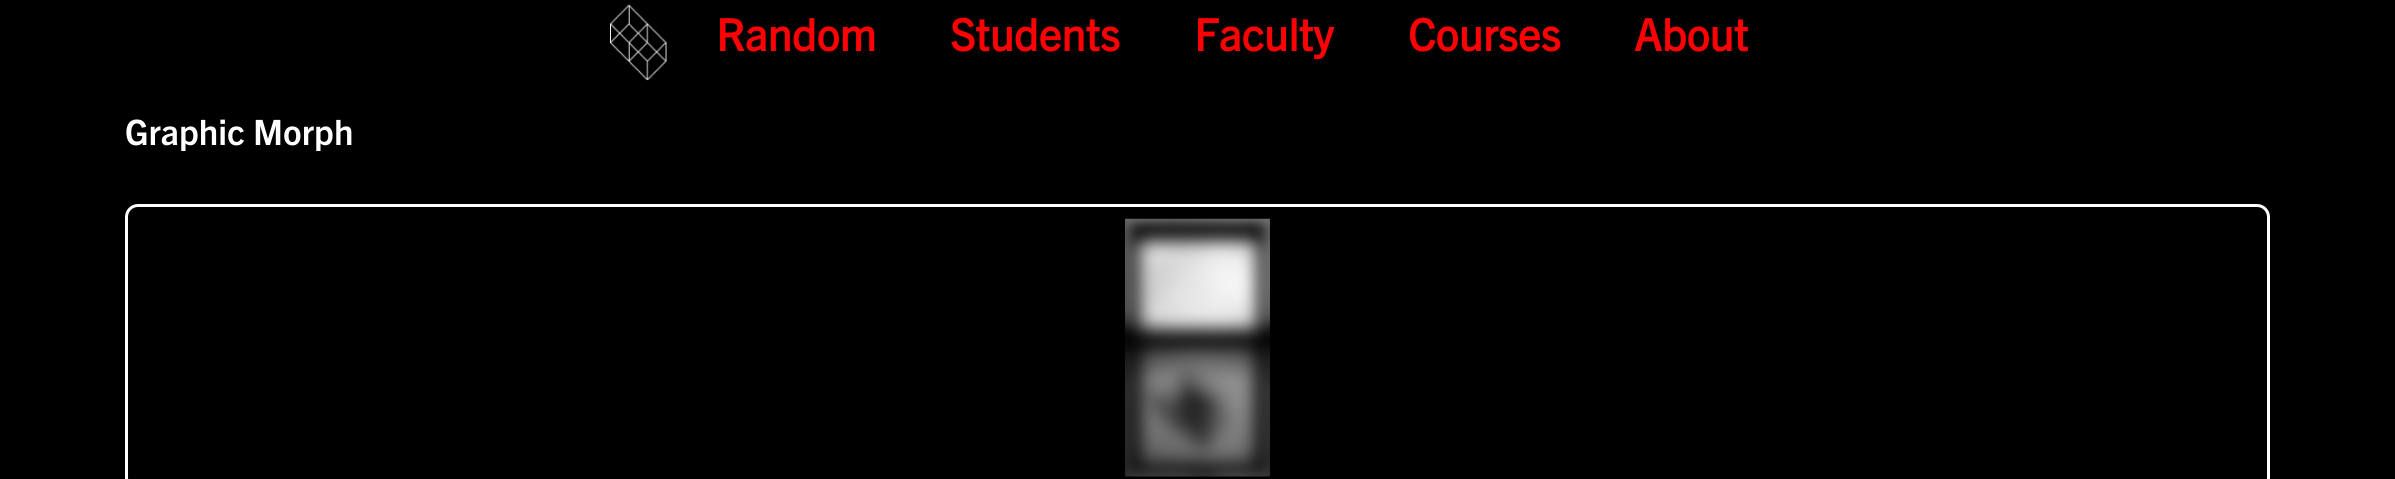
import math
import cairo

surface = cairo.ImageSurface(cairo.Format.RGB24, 2395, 479)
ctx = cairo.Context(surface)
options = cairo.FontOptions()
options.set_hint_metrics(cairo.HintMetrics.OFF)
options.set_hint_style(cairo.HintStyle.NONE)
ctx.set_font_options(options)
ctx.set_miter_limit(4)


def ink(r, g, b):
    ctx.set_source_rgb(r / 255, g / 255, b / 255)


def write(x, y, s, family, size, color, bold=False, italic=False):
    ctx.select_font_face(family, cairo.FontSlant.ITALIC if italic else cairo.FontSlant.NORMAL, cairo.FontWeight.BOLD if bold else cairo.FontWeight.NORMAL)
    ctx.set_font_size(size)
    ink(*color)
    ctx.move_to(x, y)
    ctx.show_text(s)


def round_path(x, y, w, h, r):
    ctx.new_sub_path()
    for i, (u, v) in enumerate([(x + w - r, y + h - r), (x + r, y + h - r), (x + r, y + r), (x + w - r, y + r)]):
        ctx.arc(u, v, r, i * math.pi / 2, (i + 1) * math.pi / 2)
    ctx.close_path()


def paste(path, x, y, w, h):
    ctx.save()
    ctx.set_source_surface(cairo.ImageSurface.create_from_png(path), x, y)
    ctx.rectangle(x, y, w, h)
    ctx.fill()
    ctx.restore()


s1 = dict(family="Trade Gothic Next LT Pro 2", size=44, color=(255, 0, 4), bold=True)
s2 = dict(family="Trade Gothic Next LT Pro", size=35, color=(255, 255, 255), bold=True)

ink(0, 0, 0)
ctx.paint()
paste("pic1.png", 610, 4, 57, 77)
write(716, 51, "Random", **s1)
write(950, 51, "Students", **s1)
write(1194, 51, "Faculty", **s1)
write(1408, 51, "Courses", **s1)
write(1634, 51, "About", **s1)
write(125, 145, "Graphic Morph", **s2)
round_path(126.5, 205.5, 2142, 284, 11.5)
ctx.set_line_width(3)
ctx.stroke()
paste("pic2.png", 1125, 218, 145, 259)
surface.write_to_png("screenshot.png")
